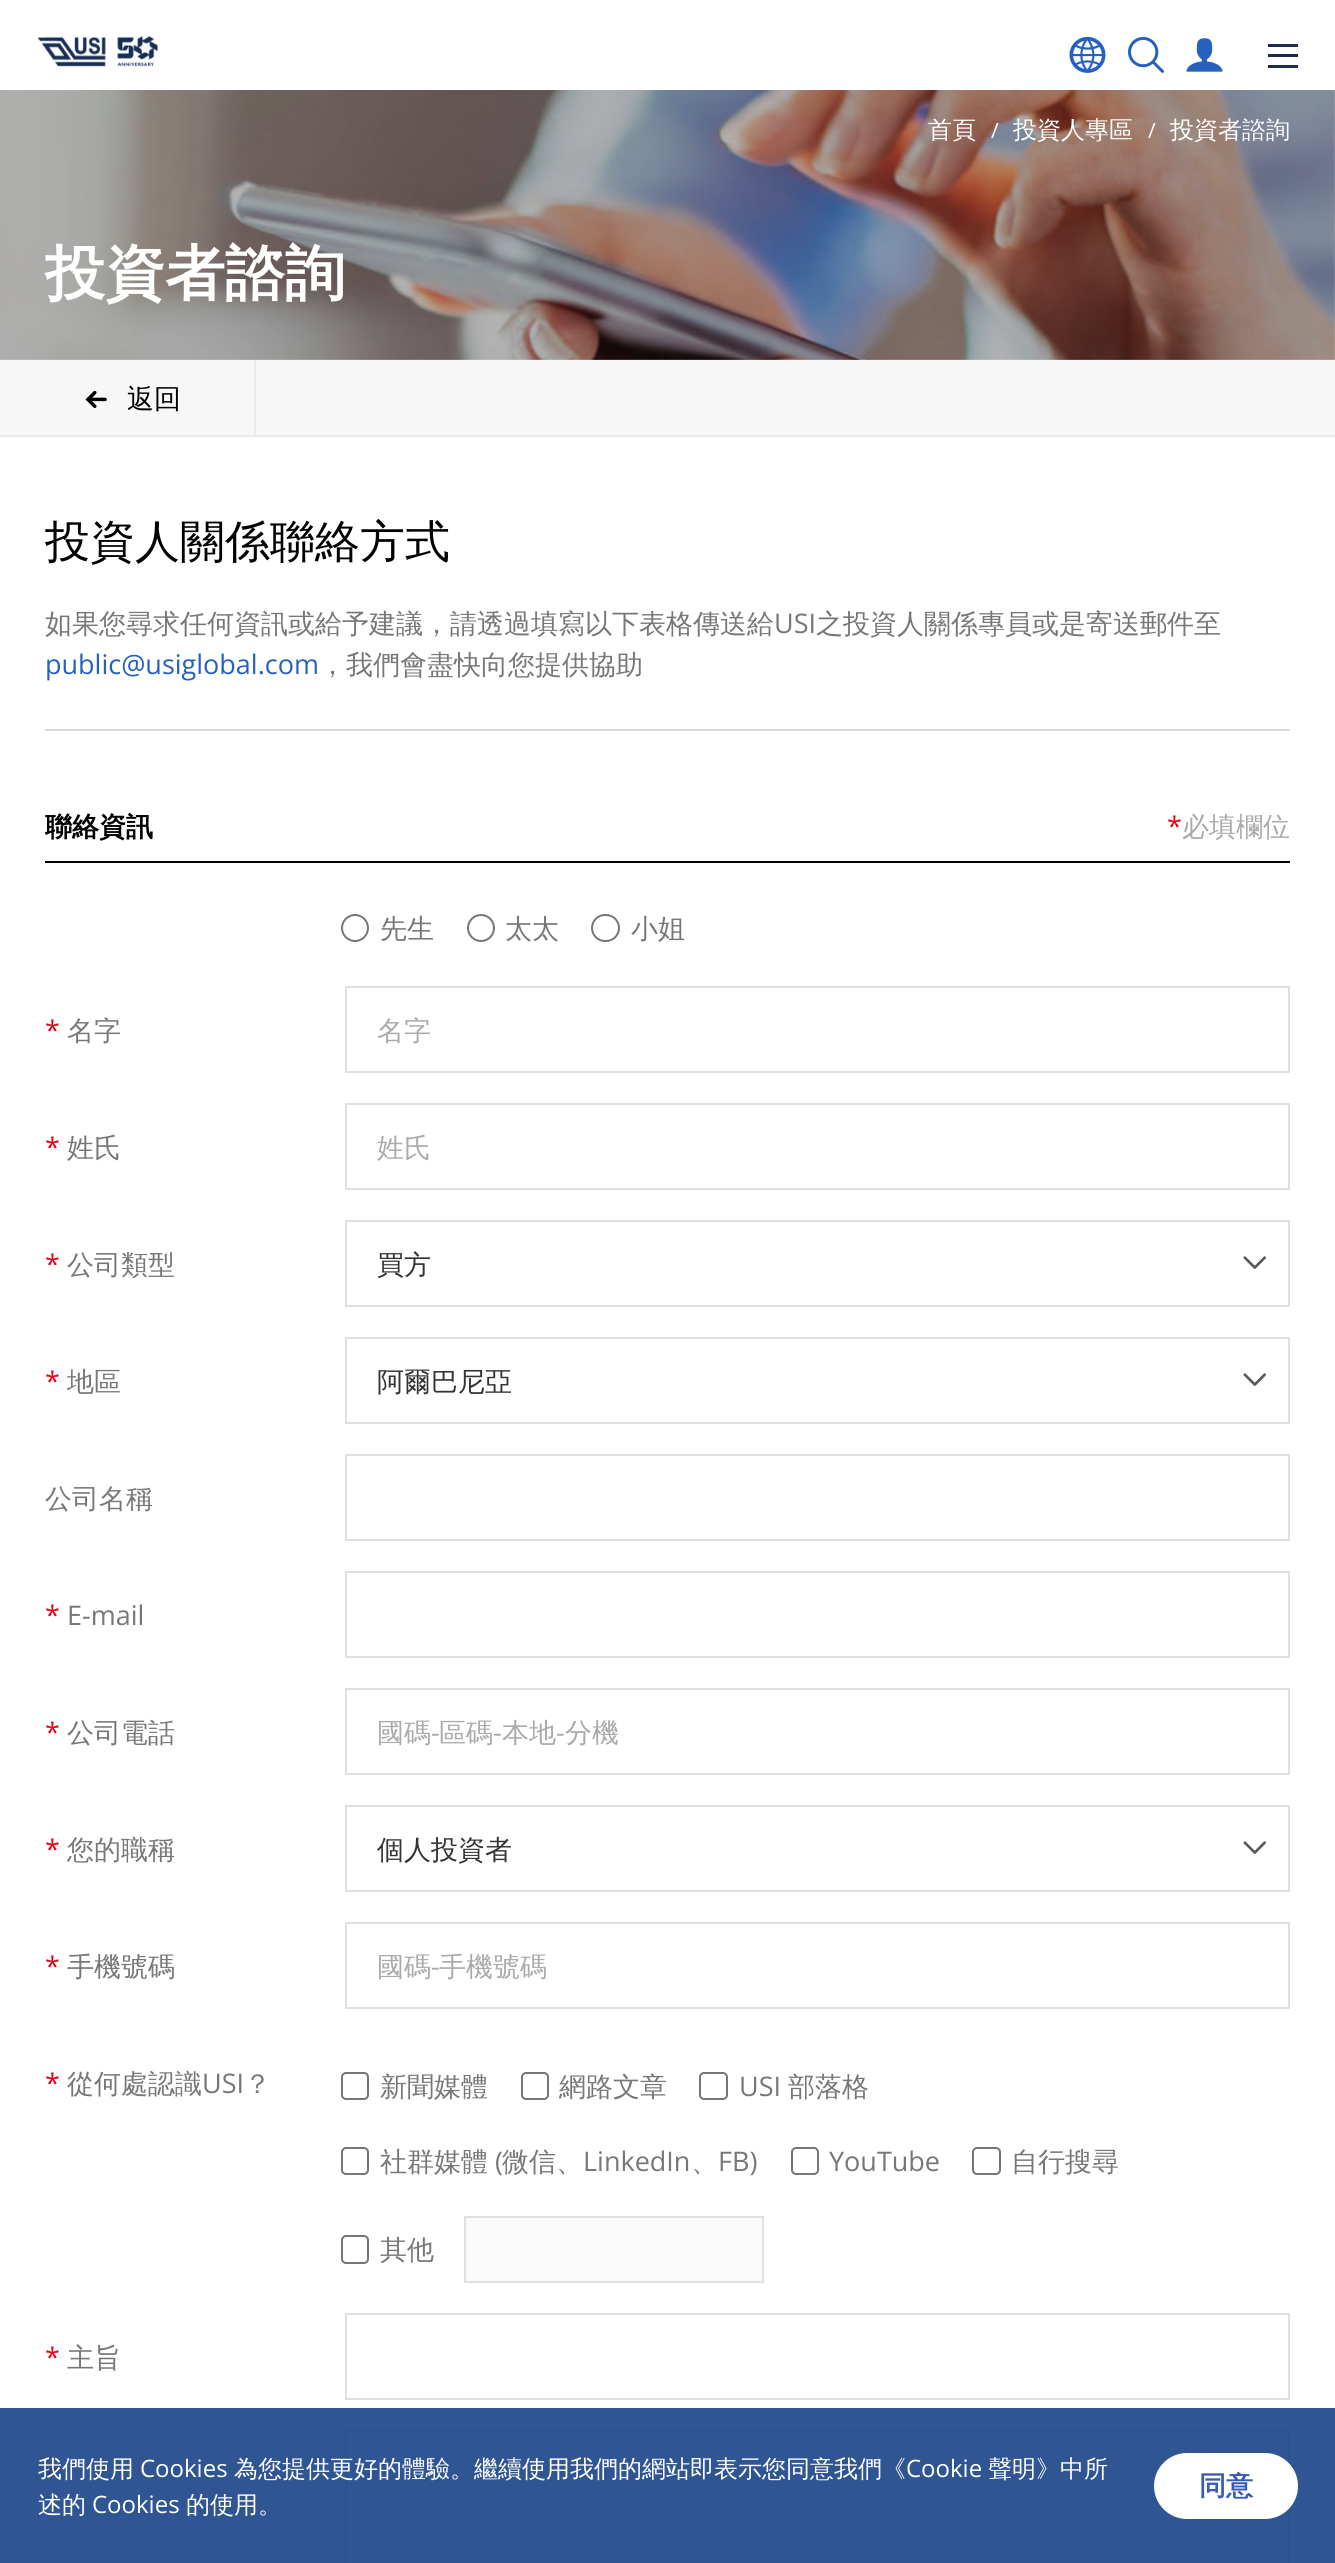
import math
import cairo

surface = cairo.ImageSurface(cairo.Format.RGB24, 1335, 2563)
ctx = cairo.Context(surface)
options = cairo.FontOptions()
options.set_hint_metrics(cairo.HintMetrics.OFF)
options.set_hint_style(cairo.HintStyle.NONE)
ctx.set_font_options(options)
ctx.set_miter_limit(4)


def ink(r, g, b):
    ctx.set_source_rgb(r / 255, g / 255, b / 255)


def write(x, y, s, family, size, color, bold=False, italic=False):
    ctx.select_font_face(family, cairo.FontSlant.ITALIC if italic else cairo.FontSlant.NORMAL, cairo.FontWeight.BOLD if bold else cairo.FontWeight.NORMAL)
    ctx.set_font_size(size)
    ink(*color)
    ctx.move_to(x, y)
    ctx.show_text(s)


def block(x, y, w, h, *color):
    ink(*color)
    ctx.rectangle(x, y, w, h)
    ctx.fill()


def round_path(x, y, w, h, r):
    ctx.new_sub_path()
    for i, (u, v) in enumerate([(x + w - r, y + h - r), (x + r, y + h - r), (x + r, y + r), (x + w - r, y + r)]):
        ctx.arc(u, v, r, i * math.pi / 2, (i + 1) * math.pi / 2)
    ctx.close_path()


def paste(path, x, y, w, h):
    ctx.save()
    ctx.set_source_surface(cairo.ImageSurface.create_from_png(path), x, y)
    ctx.rectangle(x, y, w, h)
    ctx.fill()
    ctx.restore()


s1 = dict(family="WenQuanYi Zen Hei Medium", size=24, color=(255, 255, 255))
s2 = dict(family="Open Sans", size=21, color=(255, 255, 255))
s3 = dict(family="WenQuanYi Zen Hei", size=60, color=(255, 255, 255), bold=True)
s4 = dict(family="WenQuanYi Zen Hei Medium", size=27, color=(0, 0, 0))
s5 = dict(family="WenQuanYi Zen Hei Medium", size=45, color=(0, 0, 0))
s6 = dict(family="WenQuanYi Zen Hei Medium", size=27, color=(119, 119, 119))
s7 = dict(family="Open Sans", size=27, color=(119, 119, 119))
s8 = dict(family="Open Sans", size=27, color=(38, 97, 191))
s9 = dict(family="WenQuanYi Zen Hei", size=27, color=(0, 0, 0), bold=True)
s10 = dict(family="Open Sans", size=27, color=(230, 0, 18))
s11 = dict(family="WenQuanYi Zen Hei Medium", size=27, color=(170, 170, 170))
s12 = dict(family="WenQuanYi Zen Hei Medium", size=27, color=(51, 51, 51))
s13 = dict(family="Open Sans", size=27, color=(170, 170, 170))
s14 = dict(family="Open Sans", size=27, color=(45, 59, 123))
s15 = dict(family="Open Sans", size=24, color=(255, 255, 255))
s16 = dict(family="WenQuanYi Zen Hei", size=27, color=(57, 91, 178), bold=True)

ink(255, 255, 255)
ctx.paint()
block(0, 2408, 1335, 155, 47, 85, 147)
paste("pic1.png", 37, 35, 121, 32)
paste("pic2.png", 1069, 36, 37, 37)
paste("pic3.png", 1128, 36, 36, 37)
paste("pic4.png", 1186, 38, 37, 34)
block(1268, 44, 30, 3, 29, 42, 75)
block(1268, 54, 30, 3, 29, 42, 75)
block(1268, 65, 30, 3, 29, 42, 75)
paste("pic5.png", 0, 90, 1335, 270)
write(928, 138, "首頁", **s1)
write(991, 138, "/", **s2)
write(1013, 138, "投資人專區", **s1)
write(1148, 138, "/", **s2)
write(1170, 138, "投資者諮詢", **s1)
write(45, 294, "投資者諮詢", **s3)
block(0, 360, 1335, 75, 247, 247, 247)
block(0, 435, 1335, 2, 234, 234, 234)
block(254, 360, 2, 75, 234, 234, 234)
paste("pic6.png", 85, 390, 22, 18)
write(127, 408, "返回", **s4)
write(45, 557, "投資人關係聯絡方式", **s5)
write(45, 633, "如果您尋求任何資訊或給予建議，請透過填寫以下表格傳送給", **s6)
write(774, 633, "USI", **s7)
write(816, 633, "之投資人關係專員或是寄送郵件至", **s6)
write(45, 674, "public@usiglobal.com", **s8)
write(319, 674, "，我們會盡快向您提供協助", **s6)
block(45, 729, 1245, 2, 217, 217, 217)
block(45, 861, 1245, 2, 0, 0, 0)
write(45, 836, "聯絡資訊", **s9)
write(1167, 836, "*", **s10)
write(1182, 836, "必填欄位", **s11)
ctx.new_path()
ctx.arc(355, 928, 13, 0, 2 * math.pi)
ink(118, 118, 118)
ctx.stroke()
write(380, 938, "先生", **s6)
ctx.new_path()
ctx.arc(481, 928, 13, 0, 2 * math.pi)
ink(118, 118, 118)
ctx.stroke()
write(505, 938, "太太", **s6)
round_path(592, 915, 27, 26, 13)
ink(118, 118, 118)
ctx.stroke()
write(631, 938, "小姐", **s6)
write(45, 1040, "*", **s10)
write(67, 1040, "名字", **s6)
ctx.rectangle(346, 987, 943, 85)
ink(224, 224, 224)
ctx.stroke()
write(377, 1040, "名字", **s11)
write(45, 1157, "*", **s10)
write(67, 1157, "姓氏", **s6)
ctx.rectangle(346, 1104, 943, 85)
ink(224, 224, 224)
ctx.stroke()
write(377, 1157, "姓氏", **s11)
write(45, 1274, "*", **s10)
write(67, 1274, "公司類型", **s6)
ctx.rectangle(346, 1221, 943, 85)
ink(224, 224, 224)
ctx.stroke()
write(377, 1274, "買方", **s12)
paste("pic7.png", 1243, 1256, 23, 13)
write(45, 1391, "*", **s10)
write(67, 1391, "地區", **s6)
ctx.rectangle(346, 1338, 943, 85)
ink(224, 224, 224)
ctx.stroke()
write(377, 1391, "阿爾巴尼亞", **s12)
paste("pic7.png", 1243, 1373, 23, 13)
write(45, 1508, "公司名稱", **s6)
ctx.rectangle(346, 1455, 943, 85)
ink(224, 224, 224)
ctx.stroke()
write(45, 1625, "*", **s10)
write(67, 1625, "E-mail", **s7)
ctx.rectangle(346, 1572, 943, 85)
ink(224, 224, 224)
ctx.stroke()
write(45, 1742, "*", **s10)
write(67, 1742, "公司電話", **s6)
ctx.rectangle(346, 1689, 943, 85)
ink(224, 224, 224)
ctx.stroke()
write(377, 1742, "國碼", **s11)
write(431, 1742, "-", **s13)
write(439, 1742, "區碼", **s11)
write(493, 1742, "-", **s13)
write(502, 1742, "本地", **s11)
write(556, 1742, "-", **s13)
write(565, 1742, "分機", **s11)
write(45, 1859, "*", **s10)
write(67, 1859, "您的職稱", **s6)
ctx.rectangle(346, 1806, 943, 85)
ink(224, 224, 224)
ctx.stroke()
write(377, 1859, "個人投資者", **s12)
paste("pic7.png", 1243, 1841, 23, 13)
write(45, 1976, "*", **s10)
write(67, 1976, "手機號碼", **s6)
ctx.rectangle(346, 1923, 943, 85)
ink(224, 224, 224)
ctx.stroke()
write(377, 1976, "國碼", **s11)
write(431, 1976, "-", **s13)
write(439, 1976, "手機號碼", **s11)
write(45, 2093, "*", **s10)
write(67, 2093, "從何處認識", **s6)
write(202, 2093, "USI", **s7)
write(244, 2093, "？", **s6)
round_path(342, 2073, 26, 26, 4)
ink(118, 118, 118)
ctx.stroke()
write(380, 2096, "新聞媒體", **s6)
round_path(522, 2073, 26, 26, 4)
ink(118, 118, 118)
ctx.stroke()
write(559, 2096, "網路文章", **s6)
round_path(700, 2073, 27, 26, 4)
ink(118, 118, 118)
ctx.stroke()
write(739, 2096, "USI", **s7)
write(788, 2096, "部落格", **s6)
round_path(342, 2148, 26, 26, 4)
ink(118, 118, 118)
ctx.stroke()
write(380, 2171, "社群媒體", **s6)
write(495, 2171, "(", **s7)
write(502, 2171, "微信、", **s6)
write(583, 2171, "LinkedIn", **s7)
write(691, 2171, "、", **s6)
write(718, 2171, "FB)", **s7)
round_path(792, 2148, 26, 26, 4)
ink(118, 118, 118)
ctx.stroke()
write(829, 2171, "YouTube", **s7)
round_path(973, 2148, 27, 26, 4)
ink(118, 118, 118)
ctx.stroke()
write(1011, 2171, "自行搜尋", **s6)
round_path(342, 2236, 26, 27, 4)
ink(118, 118, 118)
ctx.stroke()
write(380, 2259, "其他", **s6)
ink(250, 250, 250)
ctx.rectangle(465, 2217, 298, 65)
ctx.fill_preserve()
ink(224, 224, 224)
ctx.stroke()
write(45, 2367, "*", **s10)
write(67, 2367, "主旨", **s6)
ctx.rectangle(346, 2314, 943, 85)
ink(224, 224, 224)
ctx.stroke()
write(45, 2484, "*", **s14)
ctx.rectangle(346, 2431, 943, 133)
ink(44, 82, 144)
ctx.stroke()
write(38, 2477, "我們使用", **s1)
write(140, 2477, "Cookies", **s15)
write(234, 2477, "為您提供更好的體驗。繼續使用我們的網站即表示您同意我們《", **s1)
write(906, 2477, "Cookie", **s15)
write(988, 2477, "聲明》中所", **s1)
write(38, 2513, "述的", **s1)
write(92, 2513, "Cookies", **s15)
write(186, 2513, "的使用。", **s1)
round_path(1154, 2453, 144, 66, 33)
ctx.fill()
write(1199, 2495, "同意", **s16)
surface.write_to_png("screenshot.png")
